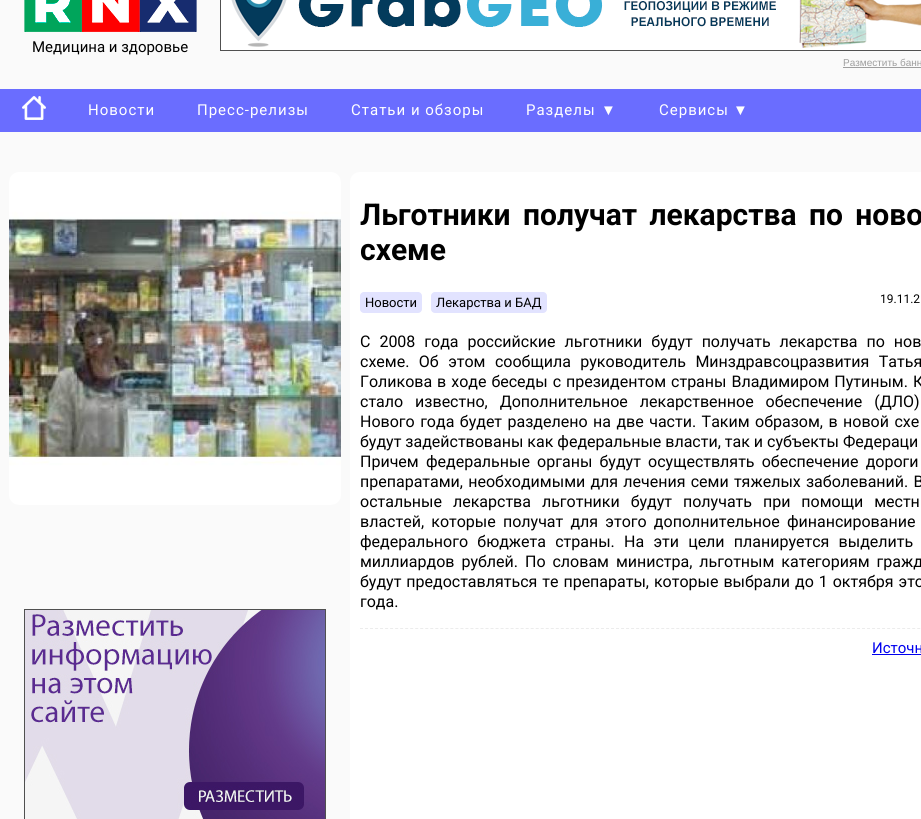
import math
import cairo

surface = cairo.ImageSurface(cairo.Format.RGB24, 921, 819)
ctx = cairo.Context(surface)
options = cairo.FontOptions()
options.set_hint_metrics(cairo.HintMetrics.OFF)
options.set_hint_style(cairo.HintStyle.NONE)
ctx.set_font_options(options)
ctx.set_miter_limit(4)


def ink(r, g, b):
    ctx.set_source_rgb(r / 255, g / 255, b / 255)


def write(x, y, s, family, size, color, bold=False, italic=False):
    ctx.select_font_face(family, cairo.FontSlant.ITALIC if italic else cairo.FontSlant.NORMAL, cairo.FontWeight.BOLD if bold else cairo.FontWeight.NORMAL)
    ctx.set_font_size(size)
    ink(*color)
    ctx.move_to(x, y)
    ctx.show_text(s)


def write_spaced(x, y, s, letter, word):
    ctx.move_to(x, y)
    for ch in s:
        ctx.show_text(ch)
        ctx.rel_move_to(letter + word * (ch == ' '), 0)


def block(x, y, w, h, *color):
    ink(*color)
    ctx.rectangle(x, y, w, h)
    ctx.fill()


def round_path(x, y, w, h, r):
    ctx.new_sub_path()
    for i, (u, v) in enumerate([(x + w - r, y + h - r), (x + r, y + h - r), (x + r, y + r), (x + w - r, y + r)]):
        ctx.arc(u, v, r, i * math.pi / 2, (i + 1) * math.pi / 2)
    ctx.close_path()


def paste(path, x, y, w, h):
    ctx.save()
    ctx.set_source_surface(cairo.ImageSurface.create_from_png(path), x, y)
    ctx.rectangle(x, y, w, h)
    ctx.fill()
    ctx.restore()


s1 = dict(family="Roboto", size=15, color=(0, 0, 0))
s2 = dict(family="Liberation Sans", size=10, color=(158, 158, 158))
s3 = dict(family="Roboto", size=30, color=(0, 0, 0), bold=True)
s4 = dict(family="Roboto", size=13, color=(0, 0, 0))
s5 = dict(family="Roboto", size=12, color=(0, 0, 0))
s6 = dict(family="Roboto", size=16, color=(0, 0, 0))
s7 = dict(family="Roboto", size=15, color=(0, 0, 238))

ink(250, 250, 250)
ctx.paint()
paste("pic1.png", 24, 0, 173, 32)
write(32, 52, "Медицина и здоровье", **s1)
ctx.rectangle(220.5, -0.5, 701, 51)
ink(80, 80, 80)
ctx.set_line_width(1)
ctx.stroke()
paste("pic2.png", 221, 0, 700, 50)
write(843, 66, "Разместить банн", **s2)
block(843, 67, 78, 1, 158, 158, 158)
block(0, 89, 921, 43, 106, 109, 255)
paste("pic3.png", 22, 96, 24, 24)
ctx.select_font_face("Roboto")
ctx.set_font_size(15)
ink(255, 255, 255)
write_spaced(88, 115, "Новости", 1, 0)
write_spaced(197, 115, "Пресс-релизы", 1, 0)
write_spaced(351, 115, "Статьи и обзоры", 1, 0)
write_spaced(526, 115, "Разделы", 1, 0)
ctx.select_font_face("Liberation Serif")
write_spaced(601, 115, "▼", 1, 0)
ctx.select_font_face("Roboto")
write_spaced(659, 115, "Сервисы", 1, 0)
ctx.select_font_face("Liberation Serif")
write_spaced(733, 115, "▼", 1, 0)
paste("pic4.png", 9, 172, 332, 333)
ctx.rectangle(24.5, 609.5, 301, 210)
ink(80, 80, 80)
ctx.stroke()
paste("pic5.png", 25, 610, 300, 209)
ink(255, 255, 255)
round_path(350, 172, 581, 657, 10)
ctx.fill()
ctx.select_font_face("Roboto", cairo.FontSlant.NORMAL, cairo.FontWeight.BOLD)
ctx.set_font_size(30)
ink(0, 0, 0)
write_spaced(360, 225, "Льготники получат лекарства по ново", 0, 5)
write(360, 260, "схеме", **s3)
ink(226, 227, 255)
round_path(360, 292, 62, 21, 4)
ctx.fill()
write(365, 307, "Новости", **s4)
ink(226, 227, 255)
round_path(431, 292, 116, 21, 4)
ctx.fill()
write(436, 307, "Лекарства и БАД", **s4)
write(880, 303, "19.11.2", **s5)
ctx.set_font_size(16)
write_spaced(360, 347, "С 2008 года российские льготники будут получать лекарства по нов", 0, 5)
write_spaced(360, 367, "схеме. Об этом сообщила руководитель Минздравсоцразвития Татья", 0, 5.5)
write_spaced(360, 387, "Голикова в ходе беседы с президентом страны Владимиром Путиным. К", 0, 1)
write_spaced(360, 407, "стало известно, Дополнительное лекарственное обеспечение (ДЛО)", 0, 8)
write_spaced(360, 427, "Нового года будет разделено на две части. Таким образом, в новой схе", 0, 1.5)
write(360, 447, "будут задействованы как федеральные власти, так и субъекты Федераци", **s6)
write_spaced(360, 467, "Причем федеральные органы будут осуществлять обеспечение дороги", 0, 3.25)
write_spaced(360, 487, "препаратами, необходимыми для лечения семи тяжелых заболеваний. В", 0, 1.25)
write_spaced(360, 507, "остальные лекарства льготники будут получать при помощи местн", 0, 7)
write_spaced(360, 527, "властей, которые получат для этого дополнительное финансирование", 0, 3.25)
write_spaced(360, 547, "федерального бюджета страны. На эти цели планируется выделить", 0, 5.25)
write_spaced(360, 567, "миллиардов рублей. По словам министра, льготным категориям гражд", 0, 3)
write_spaced(360, 587, "будут предоставляться те препараты, которые выбрали до 1 октября это", 0, 1)
write(360, 607, "года.", **s6)
ctx.new_path()
ctx.move_to(360, 628.5)
ctx.line_to(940, 628.5)
ink(236, 236, 236)
ctx.set_dash([3, 2.02])
ctx.stroke()
write(872, 653, "Источн", **s7)
block(872, 654, 49, 1, 0, 0, 238)
surface.write_to_png("screenshot.png")
